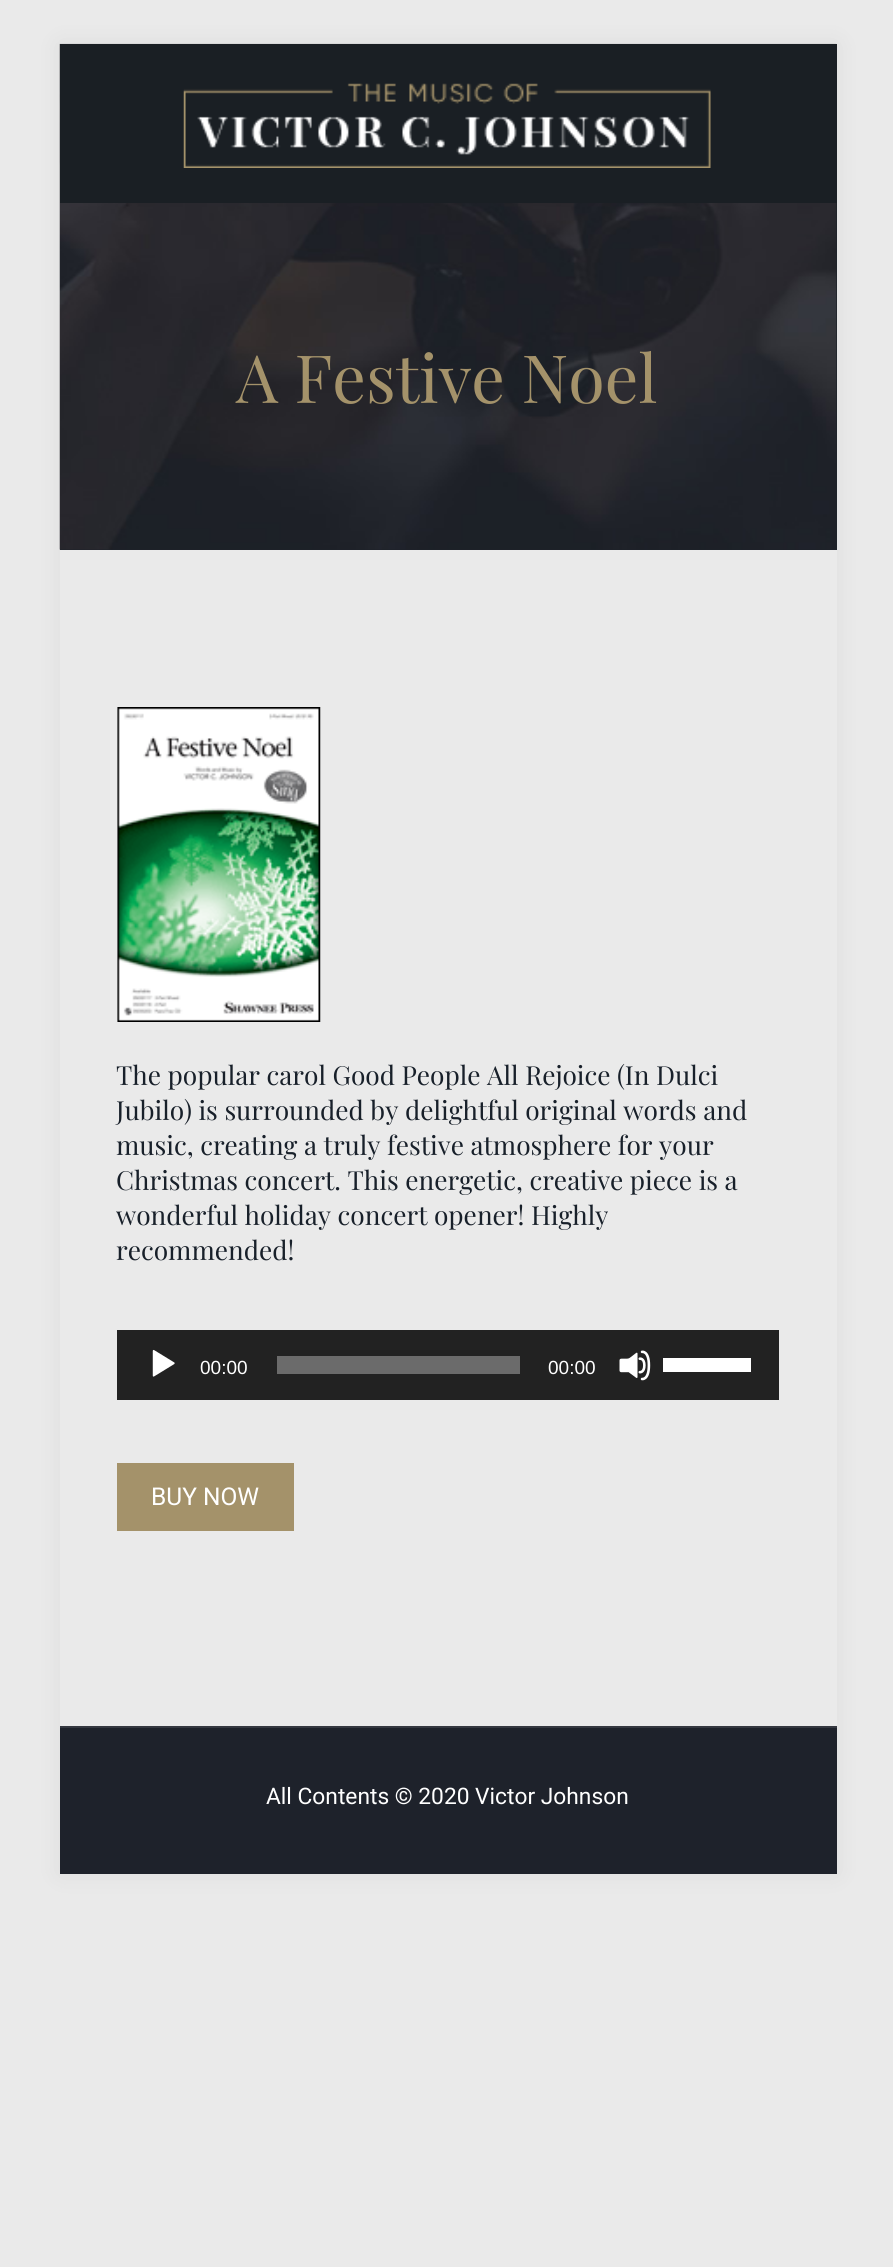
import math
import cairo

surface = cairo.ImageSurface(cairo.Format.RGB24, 893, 2267)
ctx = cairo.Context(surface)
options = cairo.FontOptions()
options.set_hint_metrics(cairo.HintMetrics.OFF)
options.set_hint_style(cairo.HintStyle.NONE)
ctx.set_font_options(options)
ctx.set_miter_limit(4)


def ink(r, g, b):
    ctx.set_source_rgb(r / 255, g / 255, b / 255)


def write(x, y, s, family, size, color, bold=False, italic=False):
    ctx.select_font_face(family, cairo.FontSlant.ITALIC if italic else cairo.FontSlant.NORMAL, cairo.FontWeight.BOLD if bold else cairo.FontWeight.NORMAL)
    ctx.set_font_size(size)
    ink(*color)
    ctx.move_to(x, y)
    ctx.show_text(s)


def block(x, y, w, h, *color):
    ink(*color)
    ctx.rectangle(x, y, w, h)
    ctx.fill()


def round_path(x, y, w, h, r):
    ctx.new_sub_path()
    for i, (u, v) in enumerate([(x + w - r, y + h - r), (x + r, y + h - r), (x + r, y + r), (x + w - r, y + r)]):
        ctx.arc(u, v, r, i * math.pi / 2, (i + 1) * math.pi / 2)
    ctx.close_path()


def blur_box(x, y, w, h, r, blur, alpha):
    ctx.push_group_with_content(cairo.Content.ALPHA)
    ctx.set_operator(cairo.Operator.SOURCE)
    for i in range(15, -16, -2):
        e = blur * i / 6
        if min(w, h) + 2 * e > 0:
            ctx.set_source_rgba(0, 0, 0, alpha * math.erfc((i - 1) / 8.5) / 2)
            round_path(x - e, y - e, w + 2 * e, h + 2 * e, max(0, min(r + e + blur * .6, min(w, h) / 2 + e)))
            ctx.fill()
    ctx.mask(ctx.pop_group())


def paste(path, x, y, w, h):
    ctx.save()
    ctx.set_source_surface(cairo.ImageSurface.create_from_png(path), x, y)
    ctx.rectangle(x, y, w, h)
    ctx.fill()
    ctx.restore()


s1 = dict(family="Playfair Display", size=66.5, color=(164, 146, 106))
s2 = dict(family="Playfair Display", size=26.25, color=(24, 32, 42))
s3 = dict(family="Liberation Sans", size=19, color=(255, 255, 255))
s4 = dict(family="Roboto", size=24.5, color=(255, 255, 255))
s5 = dict(family="Roboto", size=22.75, color=(255, 255, 255))

ink(234, 234, 234)
ctx.paint()
ink(0, 0, 0)
blur_box(60, 44, 777, 1830, 0, 13, 0.06)
block(60, 550, 777, 1176, 234, 234, 234)
block(60, 203, 777, 347, 30, 35, 42)
paste("pic1.png", 59, 43, 778, 507)
block(60, 44, 777, 159, 26, 31, 36)
paste("pic2.png", 183, 83, 528, 85)
write(236, 403, "A Festive Noel", **s1)
paste("pic3.png", 117, 707, 204, 315)
write(116, 1085, "The popular carol Good People All Rejoice (In Dulci", **s2)
write(116, 1120, "Jubilo) is surrounded by delightful original words and", **s2)
write(116, 1155, "music, creating a truly festive atmosphere for your", **s2)
write(116, 1190, "Christmas concert. This energetic, creative piece is a", **s2)
write(116, 1225, "wonderful holiday concert opener! Highly", **s2)
write(116, 1260, "recommended!", **s2)
block(117, 1330, 662, 70, 34, 34, 34)
paste("pic4.png", 152, 1349, 23, 28)
write(200, 1374, "00:00", **s3)
block(277, 1356, 243, 18, 107, 107, 107)
write(548, 1374, "00:00", **s3)
paste("pic5.png", 619, 1350, 32, 31)
block(663, 1358, 88, 14, 255, 255, 255)
block(117, 1463, 177, 68, 164, 146, 106)
write(151, 1505, "BUY NOW", **s4)
block(60, 1728, 777, 146, 30, 34, 43)
block(60, 1726, 777, 2, 53, 56, 64)
write(266, 1804, "All Contents © 2020 Victor Johnson", **s5)
surface.write_to_png("screenshot.png")
